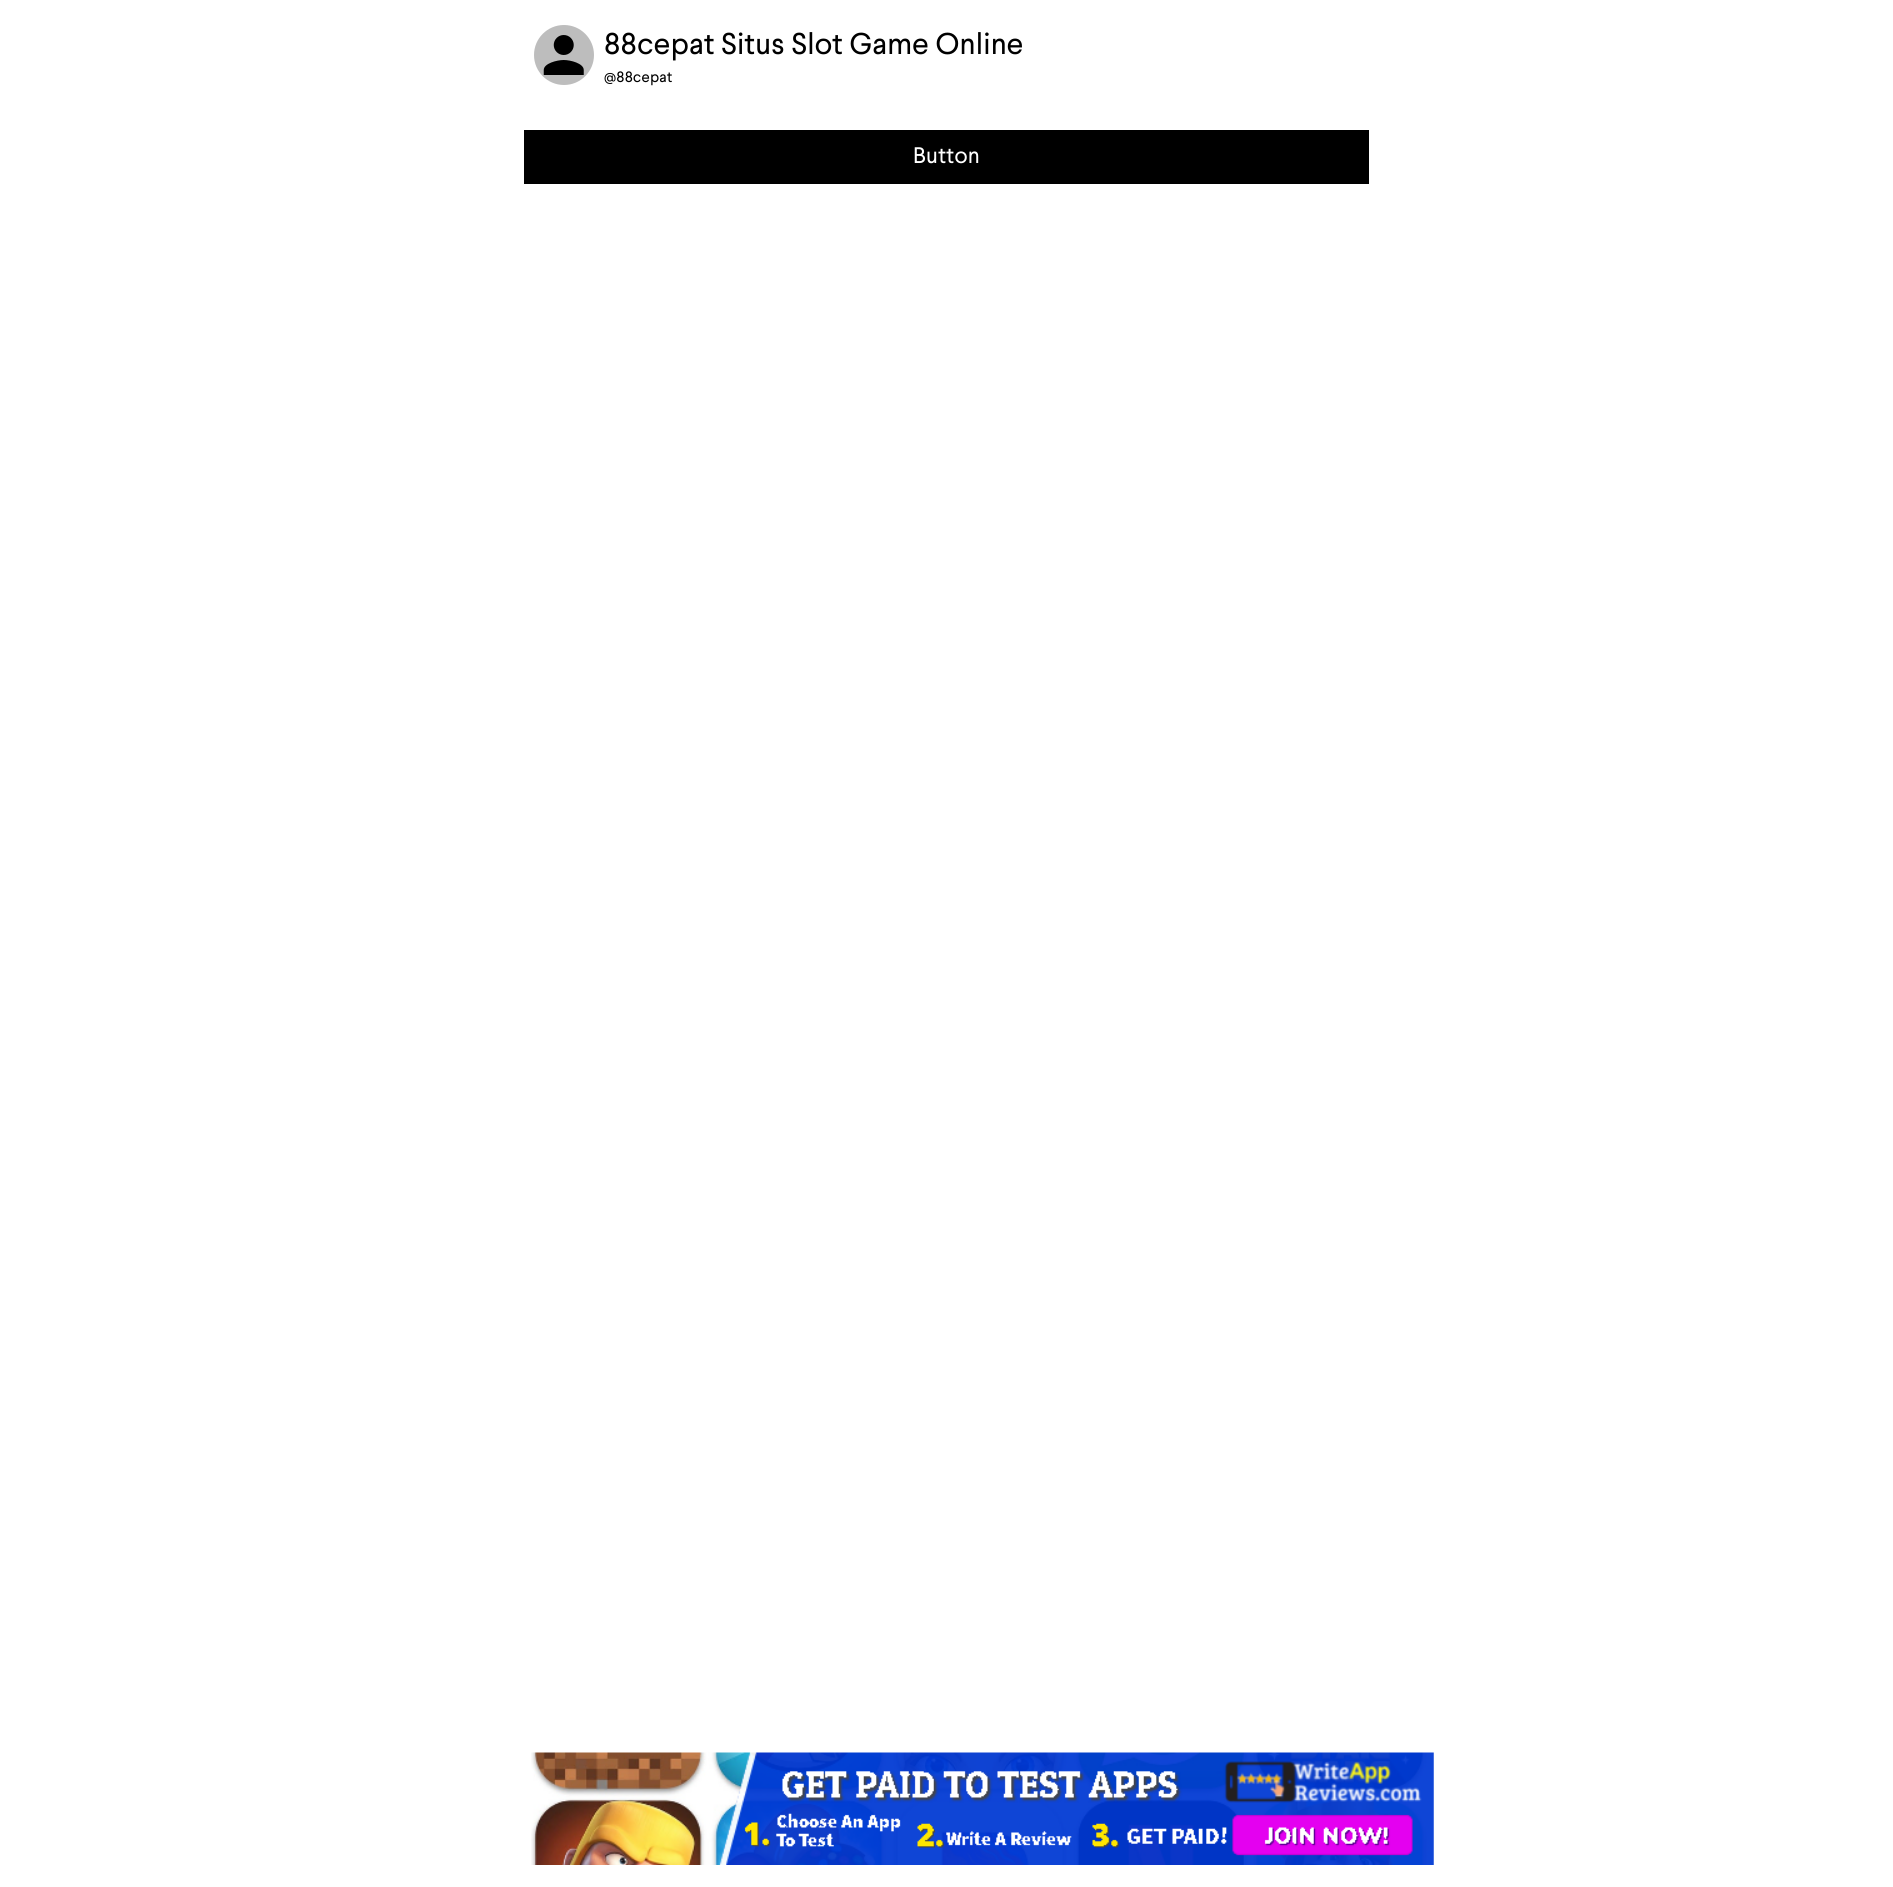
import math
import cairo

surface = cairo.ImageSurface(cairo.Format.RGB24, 1893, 1887)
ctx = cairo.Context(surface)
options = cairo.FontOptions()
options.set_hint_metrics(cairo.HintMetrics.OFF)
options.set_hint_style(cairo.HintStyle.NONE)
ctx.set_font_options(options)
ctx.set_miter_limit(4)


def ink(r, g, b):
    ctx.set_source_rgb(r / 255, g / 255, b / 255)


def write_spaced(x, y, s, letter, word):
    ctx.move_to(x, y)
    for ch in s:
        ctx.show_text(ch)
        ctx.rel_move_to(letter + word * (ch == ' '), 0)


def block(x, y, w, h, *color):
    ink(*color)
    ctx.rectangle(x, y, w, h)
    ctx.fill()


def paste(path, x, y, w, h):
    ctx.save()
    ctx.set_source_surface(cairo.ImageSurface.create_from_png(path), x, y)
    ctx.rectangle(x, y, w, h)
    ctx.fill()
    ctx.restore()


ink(255, 255, 255)
ctx.paint()
ink(189, 189, 189)
ctx.arc(564, 55, 30, 0, 2 * math.pi)
ctx.fill()
paste("pic1.png", 543, 35, 41, 40)
ctx.select_font_face("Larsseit")
ctx.set_font_size(30)
ink(0, 0, 0)
write_spaced(604, 54, "88cepat Situs Slot Game Online", 0.2, 0)
ctx.set_font_size(15)
write_spaced(604, 82, "@88cepat", 0.2, 0)
block(524, 130, 845, 54, 0, 0, 0)
ctx.set_font_size(22.5)
ink(255, 255, 255)
write_spaced(913, 163, "Button", 0.25, 0)
paste("pic2.png", 531, 1752, 903, 113)
surface.write_to_png("screenshot.png")
